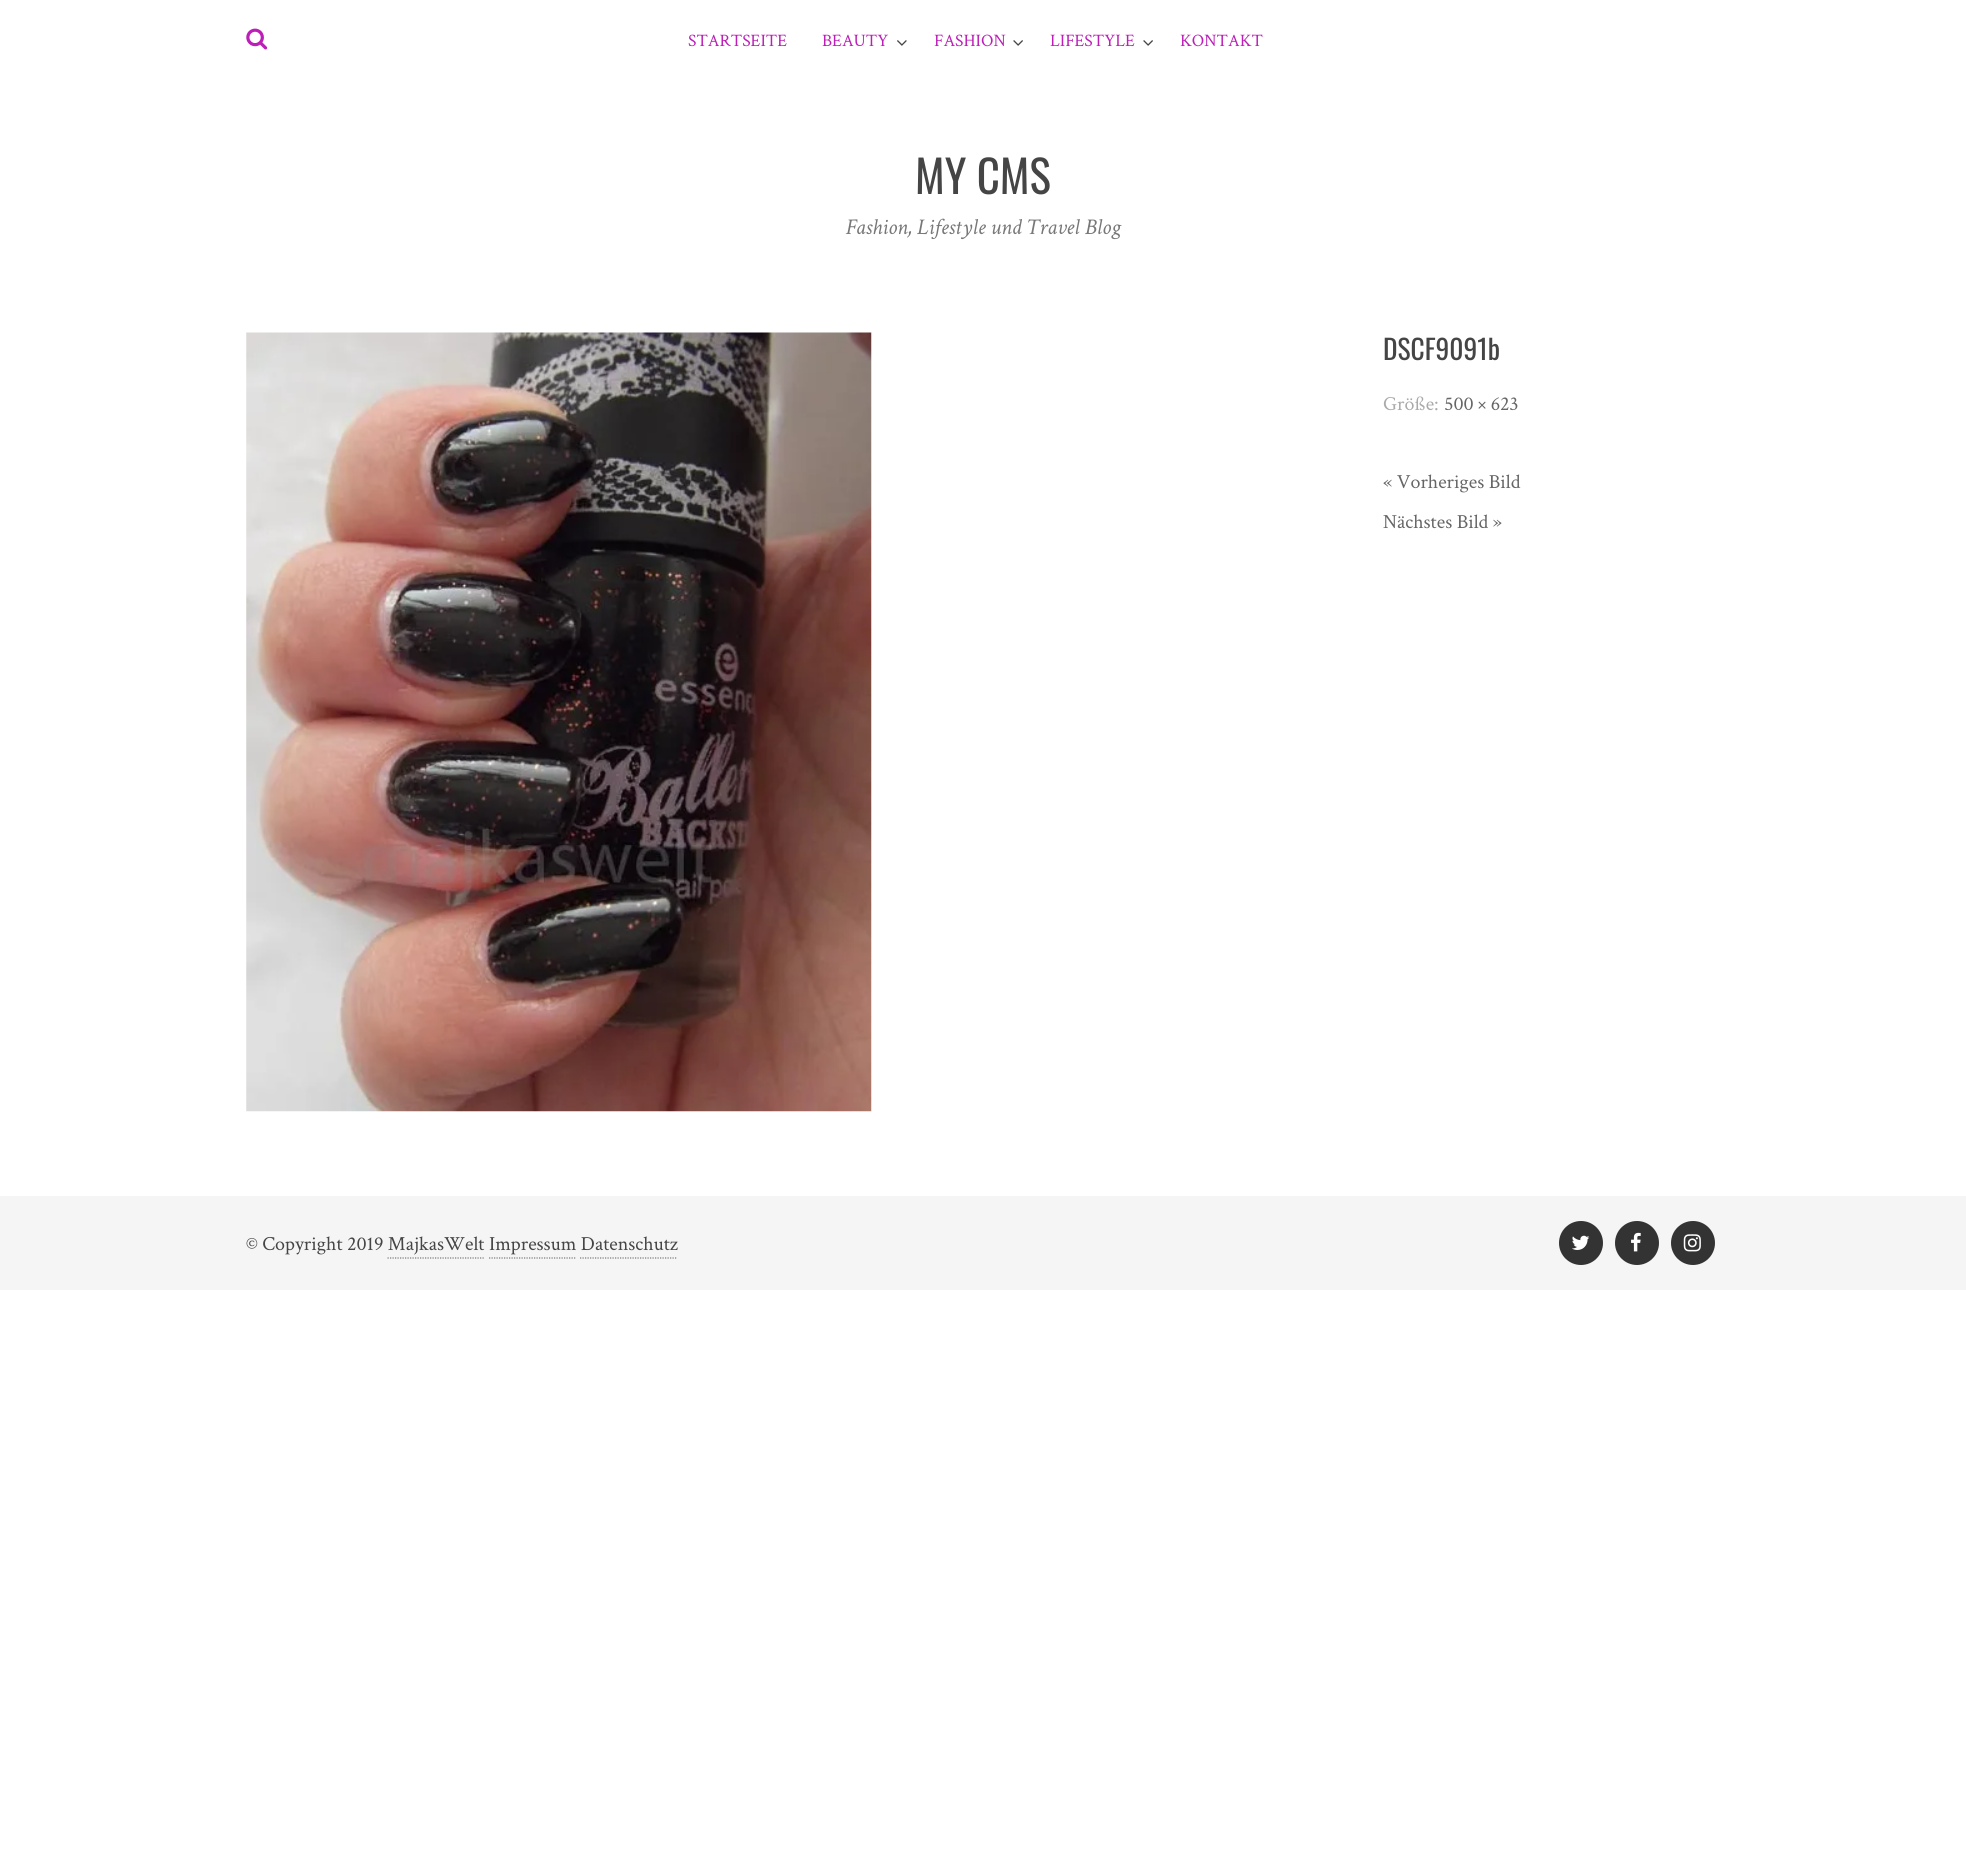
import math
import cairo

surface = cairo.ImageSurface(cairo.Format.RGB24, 1966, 1863)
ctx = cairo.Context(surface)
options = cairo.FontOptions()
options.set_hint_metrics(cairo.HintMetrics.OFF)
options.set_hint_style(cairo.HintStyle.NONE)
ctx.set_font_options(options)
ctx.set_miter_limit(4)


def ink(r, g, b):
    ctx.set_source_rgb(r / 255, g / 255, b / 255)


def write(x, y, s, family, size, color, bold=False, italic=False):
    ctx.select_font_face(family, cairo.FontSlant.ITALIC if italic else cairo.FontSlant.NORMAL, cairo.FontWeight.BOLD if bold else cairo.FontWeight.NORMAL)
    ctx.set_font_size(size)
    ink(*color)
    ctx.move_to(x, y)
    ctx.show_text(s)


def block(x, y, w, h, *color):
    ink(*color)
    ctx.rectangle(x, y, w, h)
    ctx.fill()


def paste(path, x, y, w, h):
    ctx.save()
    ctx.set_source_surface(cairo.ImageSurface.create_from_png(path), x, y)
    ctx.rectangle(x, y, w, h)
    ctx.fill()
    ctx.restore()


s1 = dict(family="Crimson Text", size=17.5, color=(188, 30, 183))
s2 = dict(family="Oswald", size=45, color=(69, 69, 69))
s3 = dict(family="Crimson Text", size=22.5, color=(119, 119, 119), italic=True)
s4 = dict(family="Oswald", size=27.5, color=(69, 69, 69))
s5 = dict(family="Crimson Text", size=20, color=(170, 170, 170))
s6 = dict(family="Crimson Text", size=20, color=(102, 102, 102))
s7 = dict(family="Crimson Text", size=20, color=(69, 69, 69))

ink(255, 255, 255)
ctx.paint()
paste("pic1.png", 246, 28, 22, 22)
write(688, 46, "STARTSEITE", **s1)
write(822, 46, "BEAUTY", **s1)
paste("pic2.png", 897, 40, 10, 6)
write(934, 46, "FASHION", **s1)
paste("pic3.png", 1013, 40, 10, 6)
write(1050, 46, "LIFESTYLE", **s1)
paste("pic3.png", 1143, 40, 10, 6)
write(1180, 46, "KONTAKT", **s1)
write(915, 194, "MY CMS", **s2)
write(846, 234, "Fashion, Lifestyle und Travel Blog", **s3)
paste("pic4.png", 246, 332, 626, 780)
write(1383, 360, "DSCF9091b", **s4)
write(1383, 410, "Größe:", **s5)
write(1444, 410, "500 × 623", **s6)
write(1383, 488, "« Vorheriges Bild", **s6)
write(1383, 528, "Nächstes Bild »", **s6)
block(0, 1196, 1966, 94, 245, 245, 245)
write(246, 1250, "© Copyright 2019 MajkasWelt Impressum Datenschutz", **s7)
ctx.new_path()
ctx.move_to(387.5, 1258)
ctx.line_to(484, 1258)
ink(119, 119, 119)
ctx.set_line_width(1.2)
ctx.set_dash([1.25, 1.25])
ctx.stroke()
ctx.new_path()
ctx.move_to(489, 1258)
ctx.line_to(576, 1258)
ctx.stroke()
ctx.new_path()
ctx.move_to(580, 1258)
ctx.line_to(677.5, 1258)
ctx.stroke()
ink(51, 51, 51)
ctx.arc(1581, 1243, 22, 0, 2 * math.pi)
ctx.fill()
paste("pic5.png", 1572, 1235, 18, 15)
ctx.arc(1637, 1243, 22, 0, 2 * math.pi)
ctx.fill()
paste("pic6.png", 1631, 1232, 10, 20)
ctx.arc(1693, 1243, 22, 0, 2 * math.pi)
ctx.fill()
paste("pic7.png", 1683, 1234, 18, 18)
surface.write_to_png("screenshot.png")
